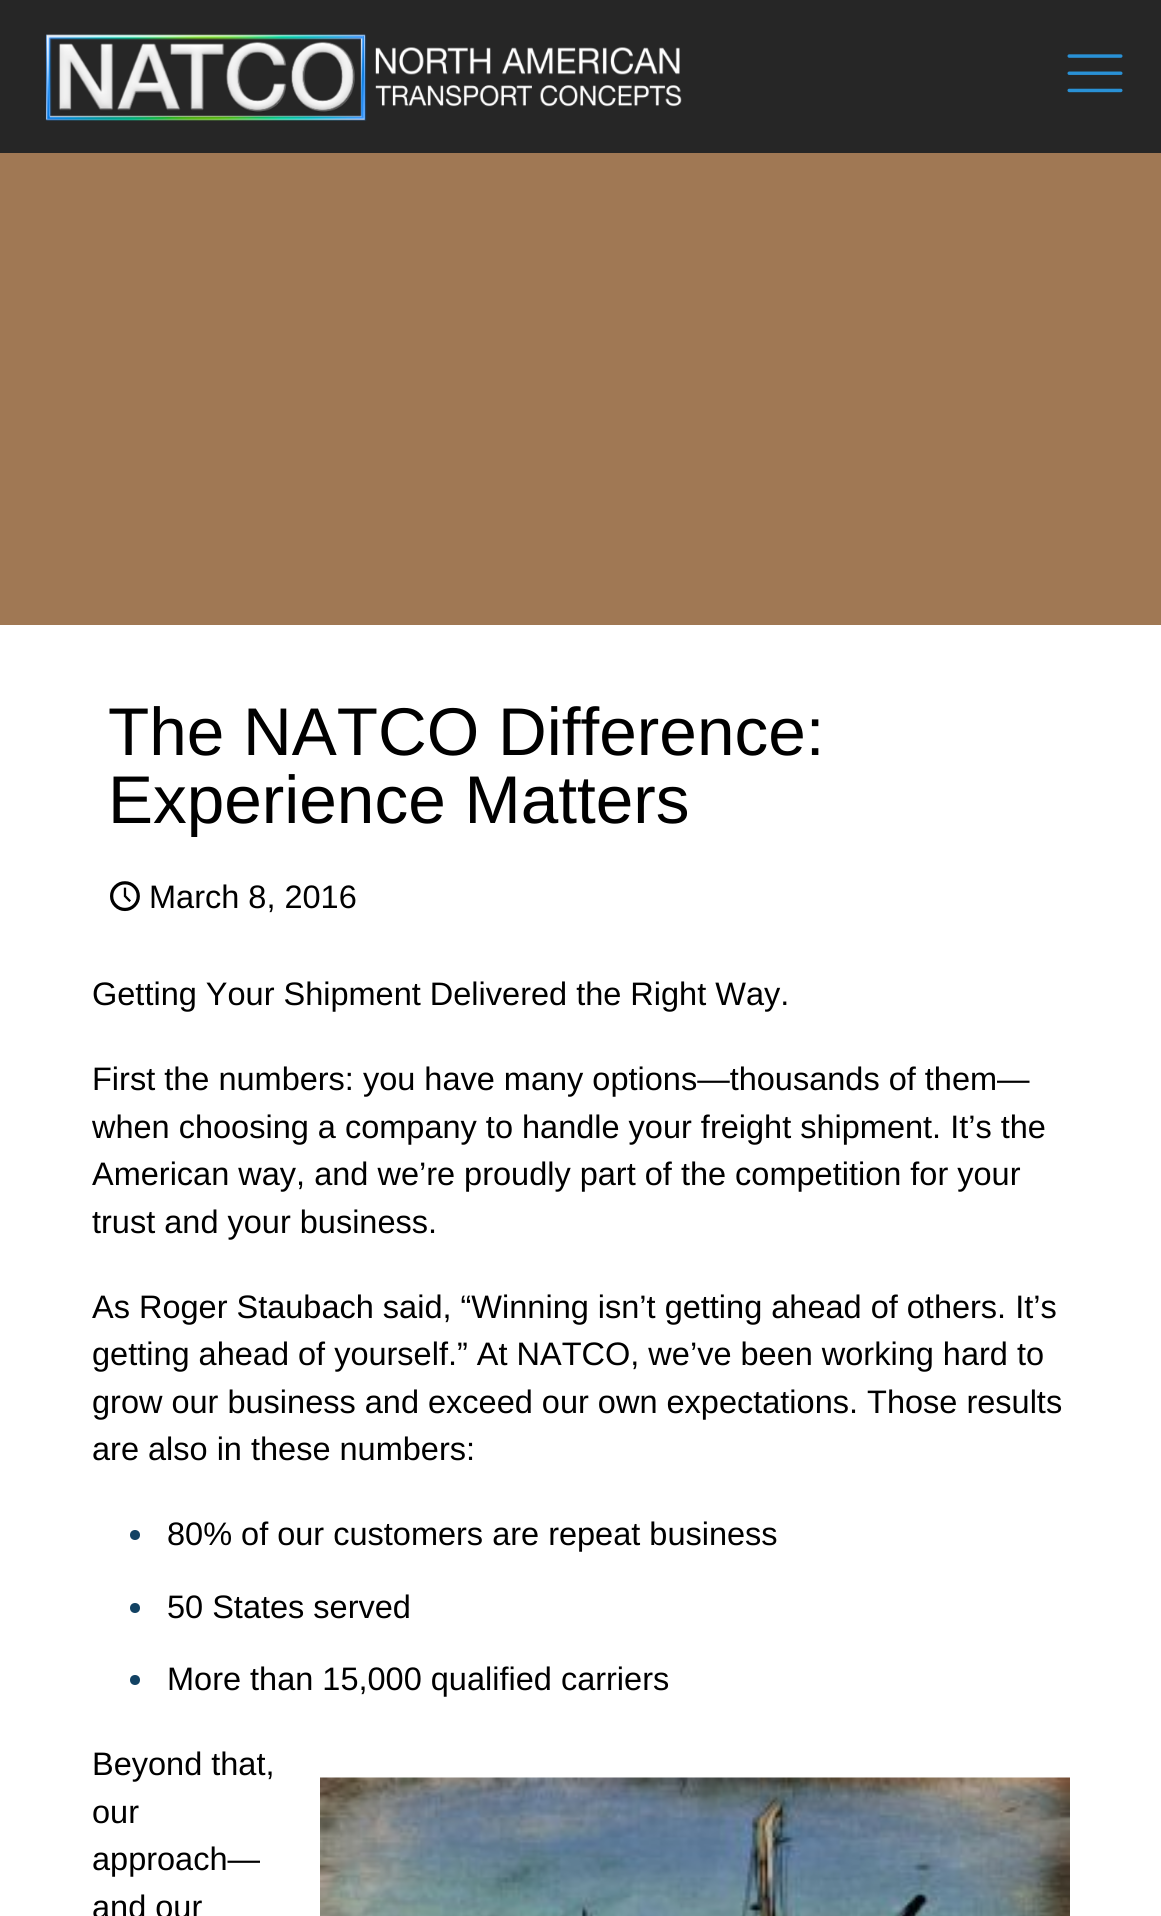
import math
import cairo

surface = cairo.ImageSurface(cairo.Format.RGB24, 1161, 1916)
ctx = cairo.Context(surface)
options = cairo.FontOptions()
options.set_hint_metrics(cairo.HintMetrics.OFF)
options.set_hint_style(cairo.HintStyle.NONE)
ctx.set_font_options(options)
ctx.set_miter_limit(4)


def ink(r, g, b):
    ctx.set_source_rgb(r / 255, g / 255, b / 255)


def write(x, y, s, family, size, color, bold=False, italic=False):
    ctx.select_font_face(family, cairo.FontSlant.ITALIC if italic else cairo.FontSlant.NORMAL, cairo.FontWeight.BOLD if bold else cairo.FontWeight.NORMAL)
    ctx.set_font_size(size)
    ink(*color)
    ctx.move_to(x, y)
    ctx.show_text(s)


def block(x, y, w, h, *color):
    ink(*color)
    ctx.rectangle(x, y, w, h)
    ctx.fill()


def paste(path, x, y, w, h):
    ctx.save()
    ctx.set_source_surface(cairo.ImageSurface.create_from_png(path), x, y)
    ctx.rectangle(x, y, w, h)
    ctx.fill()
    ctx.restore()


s1 = dict(family="Liberation Sans", size=67.5, color=(0, 0, 0))
s2 = dict(family="Liberation Sans", size=32.5, color=(0, 0, 0))

ink(160, 120, 84)
ctx.paint()
block(0, 0, 1161, 153, 38, 38, 38)
paste("pic1.png", 45, 34, 637, 87)
paste("pic2.png", 1067, 54, 56, 39)
block(0, 625, 1161, 1291, 255, 255, 255)
write(108, 755, "The NATCO Difference:", **s1)
write(108, 823, "Experience Matters", **s1)
paste("pic3.png", 110, 881, 30, 31)
write(149, 908, "March 8, 2016", **s2)
write(92, 1005, "Getting Your Shipment Delivered the Right Way.", **s2)
write(92, 1090, "First the numbers: you have many options—thousands of them—", **s2)
write(92, 1138, "when choosing a company to handle your freight shipment. It’s the", **s2)
write(92, 1185, "American way, and we’re proudly part of the competition for your", **s2)
write(92, 1233, "trust and your business.", **s2)
write(92, 1318, "As Roger Staubach said, “Winning isn’t getting ahead of others. It’s", **s2)
write(92, 1365, "getting ahead of yourself.” At NATCO, we’ve been working hard to", **s2)
write(92, 1413, "grow our business and exceed our own expectations. Those results", **s2)
write(92, 1460, "are also in these numbers:", **s2)
ink(18, 66, 99)
ctx.new_path()
ctx.arc(135, 1535, 5, 0, 2 * math.pi)
ctx.fill()
write(167, 1545, "80% of our customers are repeat business", **s2)
ink(18, 66, 99)
ctx.new_path()
ctx.arc(135, 1608, 5, 0, 2 * math.pi)
ctx.fill()
write(167, 1618, "50 States served", **s2)
ink(18, 66, 99)
ctx.new_path()
ctx.arc(135, 1680, 5, 0, 2 * math.pi)
ctx.fill()
write(167, 1690, "More than 15,000 qualified carriers", **s2)
write(92, 1775, "Beyond that,", **s2)
write(92, 1823, "our", **s2)
paste("pic4.png", 320, 1777, 750, 139)
write(92, 1870, "approach—", **s2)
write(92, 1918, "and our", **s2)
surface.write_to_png("screenshot.png")
